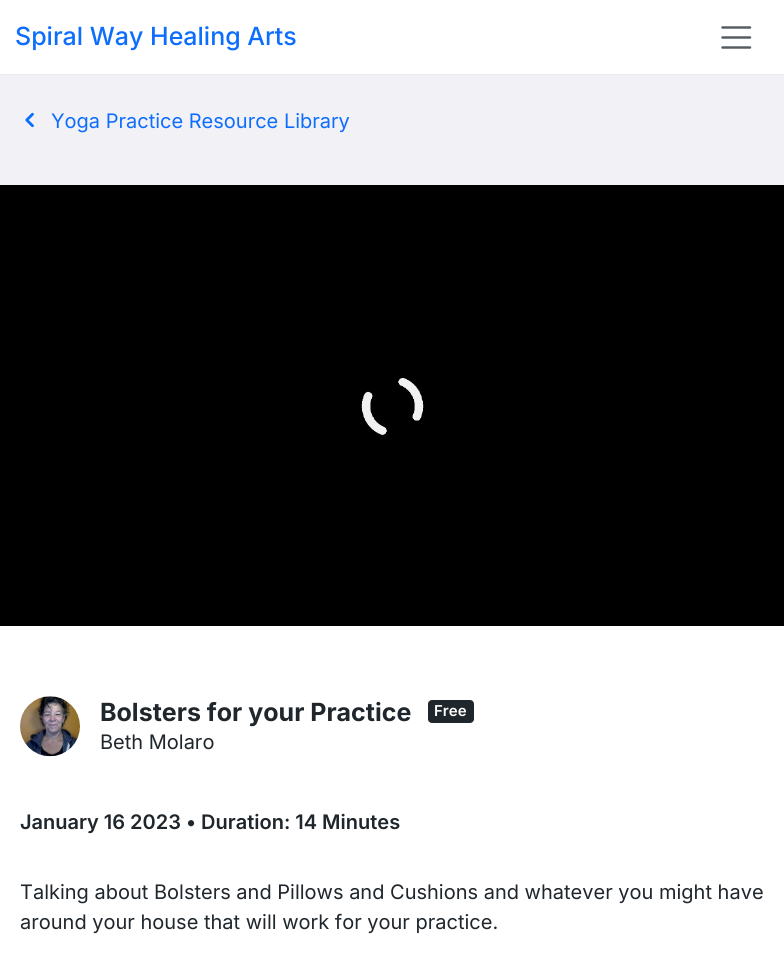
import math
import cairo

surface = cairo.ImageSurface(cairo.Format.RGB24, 784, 966)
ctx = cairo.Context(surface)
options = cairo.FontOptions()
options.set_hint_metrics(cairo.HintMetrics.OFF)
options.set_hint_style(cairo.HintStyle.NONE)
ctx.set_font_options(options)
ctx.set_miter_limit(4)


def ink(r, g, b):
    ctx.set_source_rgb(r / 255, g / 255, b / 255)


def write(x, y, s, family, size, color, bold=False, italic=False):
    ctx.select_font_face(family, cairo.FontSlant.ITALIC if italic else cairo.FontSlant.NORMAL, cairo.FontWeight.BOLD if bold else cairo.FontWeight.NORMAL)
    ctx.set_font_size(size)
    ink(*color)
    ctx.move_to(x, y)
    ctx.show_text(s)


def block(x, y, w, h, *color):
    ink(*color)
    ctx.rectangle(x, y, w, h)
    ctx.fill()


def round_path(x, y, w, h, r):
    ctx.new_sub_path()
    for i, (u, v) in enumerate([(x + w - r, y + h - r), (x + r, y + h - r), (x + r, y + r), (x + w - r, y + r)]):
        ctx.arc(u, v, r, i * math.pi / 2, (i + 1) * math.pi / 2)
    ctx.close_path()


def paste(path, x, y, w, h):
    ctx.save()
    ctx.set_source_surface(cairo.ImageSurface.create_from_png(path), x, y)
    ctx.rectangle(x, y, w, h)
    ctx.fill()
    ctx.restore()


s1 = dict(family="Inter Medium", size=25, color=(13, 110, 253))
s2 = dict(family="Inter", size=20, color=(13, 110, 253))
s3 = dict(family="Inter", size=25, color=(31, 38, 44), bold=True)
s4 = dict(family="Inter SemiBold", size=15, color=(255, 255, 255))
s5 = dict(family="Inter", size=20, color=(31, 38, 44))
s6 = dict(family="Inter SemiBold", size=20, color=(31, 38, 44))

ink(242, 241, 246)
ctx.paint()
block(0, 0, 784, 74, 255, 255, 255)
block(0, 74, 784, 1, 232, 234, 237)
write(15, 45, "Spiral Way Healing Arts", **s1)
ctx.new_path()
ctx.move_to(722.5, 27.5)
ctx.line_to(750, 27.5)
ctx.move_to(722.5, 37.5)
ctx.line_to(750, 37.5)
ctx.move_to(722.5, 47.5)
ctx.line_to(750, 47.5)
ink(87, 92, 97)
ctx.set_line_width(2.5)
ctx.set_line_cap(cairo.LineCap.ROUND)
ctx.stroke()
paste("pic1.png", 25, 112, 9, 16)
write(51, 128, "Yoga Practice Resource Library", **s2)
block(0, 626, 784, 340, 255, 255, 255)
block(0, 185, 784, 441, 0, 0, 0)
paste("pic2.png", 361, 378, 63, 58)
paste("pic3.png", 20, 696, 60, 61)
write(100, 721, "Bolsters for your Practice", **s3)
round_path(428, 700, 46, 23, 4)
ctx.fill()
write(434, 716, "Free", **s4)
write(100, 749, "Beth Molaro", **s5)
write(20, 829, "January 16 2023 • Duration: 14 Minutes", **s6)
write(20, 899, "Talking about Bolsters and Pillows and Cushions and whatever you might have", **s5)
write(20, 929, "around your house that will work for your practice.", **s5)
surface.write_to_png("screenshot.png")
